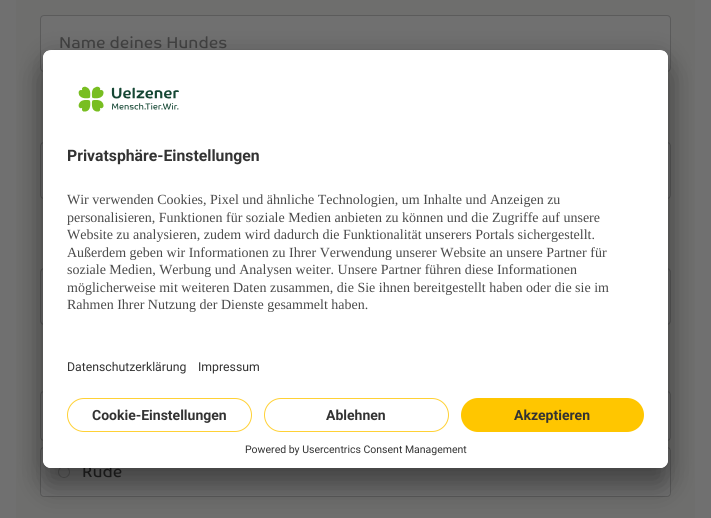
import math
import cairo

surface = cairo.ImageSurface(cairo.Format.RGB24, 711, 518)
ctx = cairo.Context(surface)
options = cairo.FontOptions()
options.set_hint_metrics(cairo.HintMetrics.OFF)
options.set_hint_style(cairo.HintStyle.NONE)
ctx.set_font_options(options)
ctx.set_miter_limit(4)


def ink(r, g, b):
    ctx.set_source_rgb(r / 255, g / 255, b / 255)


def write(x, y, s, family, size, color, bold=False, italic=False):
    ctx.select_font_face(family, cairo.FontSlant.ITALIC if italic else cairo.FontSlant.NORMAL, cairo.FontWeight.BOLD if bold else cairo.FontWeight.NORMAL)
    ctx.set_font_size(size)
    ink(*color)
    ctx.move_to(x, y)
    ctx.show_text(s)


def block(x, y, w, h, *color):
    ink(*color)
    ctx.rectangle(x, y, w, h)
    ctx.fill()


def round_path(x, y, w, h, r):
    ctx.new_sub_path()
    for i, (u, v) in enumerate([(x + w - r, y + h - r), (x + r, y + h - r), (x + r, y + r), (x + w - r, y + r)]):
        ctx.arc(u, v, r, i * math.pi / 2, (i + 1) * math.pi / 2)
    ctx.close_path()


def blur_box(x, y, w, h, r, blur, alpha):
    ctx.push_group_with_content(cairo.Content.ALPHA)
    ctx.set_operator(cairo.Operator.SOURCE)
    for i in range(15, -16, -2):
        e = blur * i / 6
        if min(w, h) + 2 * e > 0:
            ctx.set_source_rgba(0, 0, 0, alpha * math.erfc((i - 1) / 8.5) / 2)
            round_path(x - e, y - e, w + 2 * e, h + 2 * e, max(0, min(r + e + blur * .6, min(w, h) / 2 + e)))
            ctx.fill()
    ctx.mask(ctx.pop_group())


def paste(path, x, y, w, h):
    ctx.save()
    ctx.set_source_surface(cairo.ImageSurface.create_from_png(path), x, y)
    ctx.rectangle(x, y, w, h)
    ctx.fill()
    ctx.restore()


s1 = dict(family="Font", size=16, color=(66, 66, 66))
s2 = dict(family="Font", size=16, color=(36, 36, 36))
s3 = dict(family="Roboto", size=15.75, color=(51, 51, 51), bold=True)
s4 = dict(family="Liberation Serif", size=14, color=(74, 74, 74))
s5 = dict(family="Roboto", size=12.25, color=(51, 51, 51))
s6 = dict(family="Roboto", size=14, color=(51, 51, 51), bold=True)
s7 = dict(family="Roboto", size=10.5, color=(51, 51, 51))

ink(112, 112, 112)
ctx.paint()
ink(110, 110, 109)
ctx.new_path()
ctx.move_to(43, -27)
ctx.line_to(695, -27)
ctx.line_to(695, 516)
ctx.curve_to(695, 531, 683, 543, 668, 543)
ctx.line_to(16, 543)
ctx.line_to(16, 0)
ctx.curve_to(16, -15, 28, -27, 43, -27)
ctx.close_path()
ctx.fill()
ink(112, 112, 112)
round_path(40.5, 15.5, 630, 56, 3.5)
ctx.fill_preserve()
ink(91, 91, 91)
ctx.set_line_width(1)
ctx.stroke()
write(59, 48, "Name deines Hundes", **s1)
ink(112, 112, 112)
round_path(40.5, 142.5, 630, 56, 3.5)
ctx.fill_preserve()
ink(91, 91, 91)
ctx.stroke()
ink(112, 112, 112)
ctx.new_path()
ctx.move_to(634, 268)
ctx.line_to(667, 268)
ctx.curve_to(669, 268, 671, 270, 671, 272)
ctx.line_to(671, 321)
ctx.curve_to(671, 323, 669, 325, 667, 325)
ctx.line_to(634, 325)
ctx.close_path()
ctx.fill()
ink(91, 91, 91)
ctx.set_fill_rule(cairo.FillRule.EVEN_ODD)
ctx.new_path()
ctx.move_to(634, 268)
ctx.line_to(667, 268)
ctx.curve_to(669, 268, 671, 270, 671, 272)
ctx.line_to(671, 321)
ctx.curve_to(671, 323, 669, 325, 667, 325)
ctx.line_to(634, 325)
ctx.close_path()
ctx.move_to(634, 269)
ctx.line_to(667, 269)
ctx.curve_to(668, 269, 670, 271, 670, 272)
ctx.line_to(670, 321)
ctx.curve_to(670, 322, 668, 324, 667, 324)
ctx.line_to(634, 324)
ctx.close_path()
ctx.fill()
ink(112, 112, 112)
ctx.new_path()
ctx.move_to(44, 269)
ctx.line_to(635, 269)
ctx.line_to(635, 324)
ctx.line_to(44, 324)
ctx.curve_to(42.5, 324, 41, 322.5, 41, 321)
ctx.line_to(41, 272)
ctx.curve_to(41, 270.5, 42.5, 269, 44, 269)
ctx.close_path()
ctx.fill()
ink(91, 91, 91)
ctx.new_path()
ctx.move_to(44, 268)
ctx.line_to(635, 268)
ctx.line_to(635, 325)
ctx.line_to(44, 325)
ctx.curve_to(42, 325, 40, 323, 40, 321)
ctx.line_to(40, 272)
ctx.curve_to(40, 270, 42, 268, 44, 268)
ctx.close_path()
ctx.move_to(44, 269)
ctx.line_to(635, 269)
ctx.line_to(635, 324)
ctx.line_to(44, 324)
ctx.curve_to(43, 324, 41, 322, 41, 321)
ctx.line_to(41, 272)
ctx.curve_to(41, 271, 43, 269, 44, 269)
ctx.close_path()
ctx.fill()
ink(112, 112, 112)
round_path(40.5, 391.5, 630, 49, 3.5)
ctx.fill_preserve()
ink(91, 91, 91)
ctx.stroke()
ink(112, 112, 112)
round_path(40.5, 447.5, 630, 49, 3.5)
ctx.fill_preserve()
ink(91, 91, 91)
ctx.stroke()
ctx.arc(64, 472, 5.5, 0, 2 * math.pi)
ctx.stroke()
write(82, 477, "Rüde", **s2)
ink(0, 0, 0)
blur_box(43, 70, 625, 418, 8, 14, 0.3)
blur_box(43, 55, 625, 418, 8, 13, 0.22)
ink(255, 255, 255)
round_path(43, 50, 625, 418, 8)
ctx.fill()
ctx.save()
ctx.set_fill_rule(cairo.FillRule.WINDING)
round_path(43, 50, 625, 418, 8)
ctx.clip()
ctx.new_path()
ctx.move_to(51, 50)
ctx.line_to(660, 50)
ctx.curve_to(664.5, 50, 668, 53.5, 668, 58)
ctx.line_to(668, 390)
ctx.line_to(43, 390)
ctx.line_to(43, 58)
ctx.curve_to(43, 53.5, 46.5, 50, 51, 50)
ctx.close_path()
ctx.clip()
block(43, 51, 625, 339, 255, 255, 255)
ctx.restore()
paste("pic1.png", 78, 86, 101, 26)
write(67, 161, "Privatsphäre-Einstellungen", **s3)
write(67, 204, "Wir verwenden Cookies, Pixel und ähnliche Technologien, um Inhalte und Anzeigen zu", **s4)
write(67, 222, "personalisieren, Funktionen für soziale Medien anbieten zu können und die Zugriffe auf unsere", **s4)
write(67, 239, "Website zu analysieren, zudem wird dadurch die Funktionalität unserers Portals sichergestellt.", **s4)
write(67, 257, "Außerdem geben wir Informationen zu Ihrer Verwendung unserer Website an unsere Partner für", **s4)
write(67, 274, "soziale Medien, Werbung und Analysen weiter. Unsere Partner führen diese Informationen", **s4)
write(67, 292, "möglicherweise mit weiteren Daten zusammen, die Sie ihnen bereitgestellt haben oder die sie im", **s4)
write(67, 309, "Rahmen Ihrer Nutzung der Dienste gesammelt haben.", **s4)
write(67, 371, "Datenschutzerklärung", **s5)
write(198, 371, "Impressum", **s5)
ink(255, 255, 255)
ctx.new_path()
ctx.move_to(43, 390)
ctx.line_to(668, 390)
ctx.line_to(668, 460)
ctx.curve_to(668, 464.5, 664.5, 468, 660, 468)
ctx.line_to(51, 468)
ctx.curve_to(46.5, 468, 43, 464.5, 43, 460)
ctx.close_path()
ctx.fill()
round_path(67.5, 398.5, 184, 33, 16.5)
ink(255, 209, 54)
ctx.stroke()
write(92, 420, "Cookie-Einstellungen", **s6)
round_path(264.5, 398.5, 184, 33, 16.5)
ink(255, 209, 54)
ctx.stroke()
write(326, 420, "Ablehnen", **s6)
ink(255, 198, 0)
round_path(461, 398, 183, 34, 17)
ctx.fill()
write(514, 420, "Akzeptieren", **s6)
write(245, 453, "Powered by Usercentrics Consent Management", **s7)
surface.write_to_png("screenshot.png")
